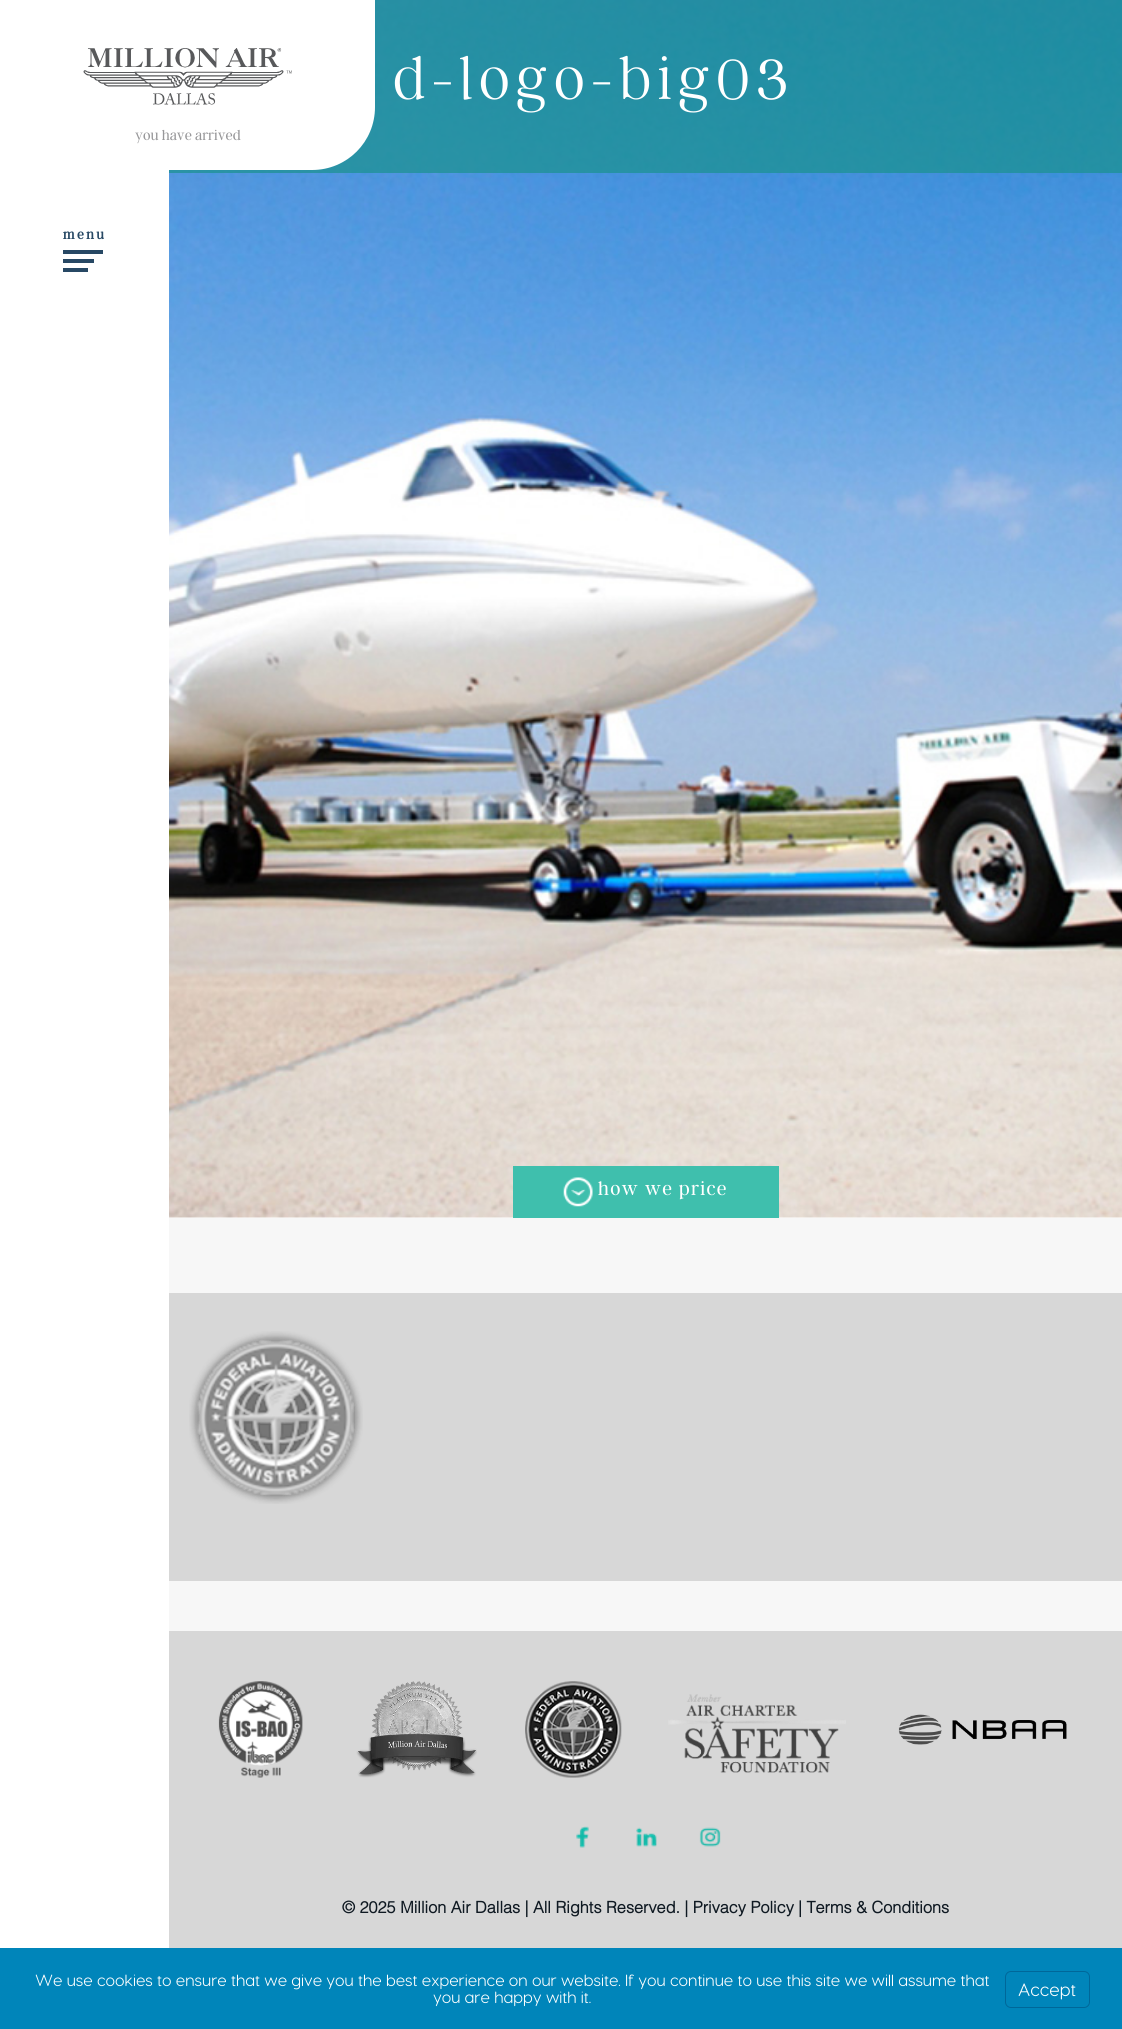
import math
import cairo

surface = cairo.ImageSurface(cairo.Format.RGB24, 1122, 2029)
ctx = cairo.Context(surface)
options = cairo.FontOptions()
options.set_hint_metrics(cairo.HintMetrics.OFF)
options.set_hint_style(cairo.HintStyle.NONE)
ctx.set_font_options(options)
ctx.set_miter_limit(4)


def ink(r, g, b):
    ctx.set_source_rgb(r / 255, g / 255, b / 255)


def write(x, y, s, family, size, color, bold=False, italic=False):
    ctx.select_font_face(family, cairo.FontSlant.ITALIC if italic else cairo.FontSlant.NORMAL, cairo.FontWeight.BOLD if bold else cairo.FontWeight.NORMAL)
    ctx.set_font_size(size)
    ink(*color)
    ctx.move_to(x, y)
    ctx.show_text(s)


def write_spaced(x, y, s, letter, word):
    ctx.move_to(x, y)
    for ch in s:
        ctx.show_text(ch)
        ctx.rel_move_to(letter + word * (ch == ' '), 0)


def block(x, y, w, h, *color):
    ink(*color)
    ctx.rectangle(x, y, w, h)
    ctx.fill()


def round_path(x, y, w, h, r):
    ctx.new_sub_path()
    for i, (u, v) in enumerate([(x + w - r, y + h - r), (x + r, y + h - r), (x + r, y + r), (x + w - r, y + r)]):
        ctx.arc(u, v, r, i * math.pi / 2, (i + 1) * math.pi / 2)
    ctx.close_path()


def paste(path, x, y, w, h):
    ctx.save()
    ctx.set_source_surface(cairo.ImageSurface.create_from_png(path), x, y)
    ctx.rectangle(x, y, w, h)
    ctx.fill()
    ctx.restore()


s1 = dict(family="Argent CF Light", size=14.75, color=(151, 151, 153))
s2 = dict(family="Helvetica", size=16.25, color=(15, 25, 34), bold=True)
s3 = dict(family="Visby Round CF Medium", size=16.25, color=(255, 255, 255))
s4 = dict(family="Visby Round CF Medium", size=18, color=(255, 255, 255))

ink(255, 255, 255)
ctx.paint()
paste("pic2.png", 169, 0, 953, 1218)
ctx.set_source_rgba(0.102, 0.573, 0.553, 0.7)
ctx.rectangle(169, 0, 953, 173)
ctx.fill()
ink(255, 255, 255)
ctx.new_path()
ctx.move_to(0, 0)
ctx.line_to(375, 0)
ctx.line_to(375, 107)
ctx.curve_to(375, 142, 347, 170, 312, 170)
ctx.line_to(0, 170)
ctx.close_path()
ctx.fill()
paste("pic1.png", 83, 48, 209, 57)
write(135, 140, "you have arrived", **s1)
ctx.select_font_face("Argent CF", cairo.FontSlant.NORMAL, cairo.FontWeight.BOLD)
ctx.set_font_size(14)
ink(39, 72, 100)
write_spaced(63, 239, "menu", 2.5, 0)
block(63, 259, 31, 4, 39, 72, 100)
block(63, 250, 40, 4, 39, 72, 100)
block(63, 268, 25, 4, 39, 72, 100)
ctx.select_font_face("Argent CF Thin")
ctx.set_font_size(62.5)
ink(255, 255, 255)
write_spaced(393, 99, "d-logo-big03", 6.25, 0)
block(513, 1166, 266, 52, 63, 191, 173)
paste("pic3.png", 563, 1177, 30, 30)
ctx.select_font_face("Argent CF Light")
ctx.set_font_size(20)
ink(255, 255, 255)
write_spaced(598, 1195, "how we price", 1.25, 0)
block(169, 1218, 953, 413, 247, 247, 247)
block(169, 1293, 953, 288, 215, 215, 215)
paste("pic4.png", 189, 1331, 174, 173)
block(169, 1631, 953, 317, 215, 215, 215)
paste("pic5.png", 218, 1681, 85, 97)
paste("pic6.png", 356, 1681, 121, 97)
paste("pic7.png", 525, 1681, 97, 97)
paste("pic8.png", 668, 1694, 178, 79)
paste("pic9.png", 898, 1714, 169, 31)
paste("pic10.png", 576, 1826, 13, 22)
paste("pic11.png", 636, 1827, 21, 20)
paste("pic12.png", 699, 1827, 22, 20)
write(342, 1913, "© 2025 Million Air Dallas | All Rights Reserved. | Privacy Policy | Terms & Conditions", **s2)
block(0, 1948, 1122, 81, 0, 133, 186)
write(35, 1986, "We use cookies to ensure that we give you the best experience on our website. If you continue to use this site we will assume that", **s3)
write(433, 2003, "you are happy with it.", **s3)
round_path(1005.5, 1971.5, 84, 36, 5.5)
ink(0, 103, 153)
ctx.set_line_width(1)
ctx.stroke()
write(1018, 1996, "Accept", **s4)
surface.write_to_png("screenshot.png")
